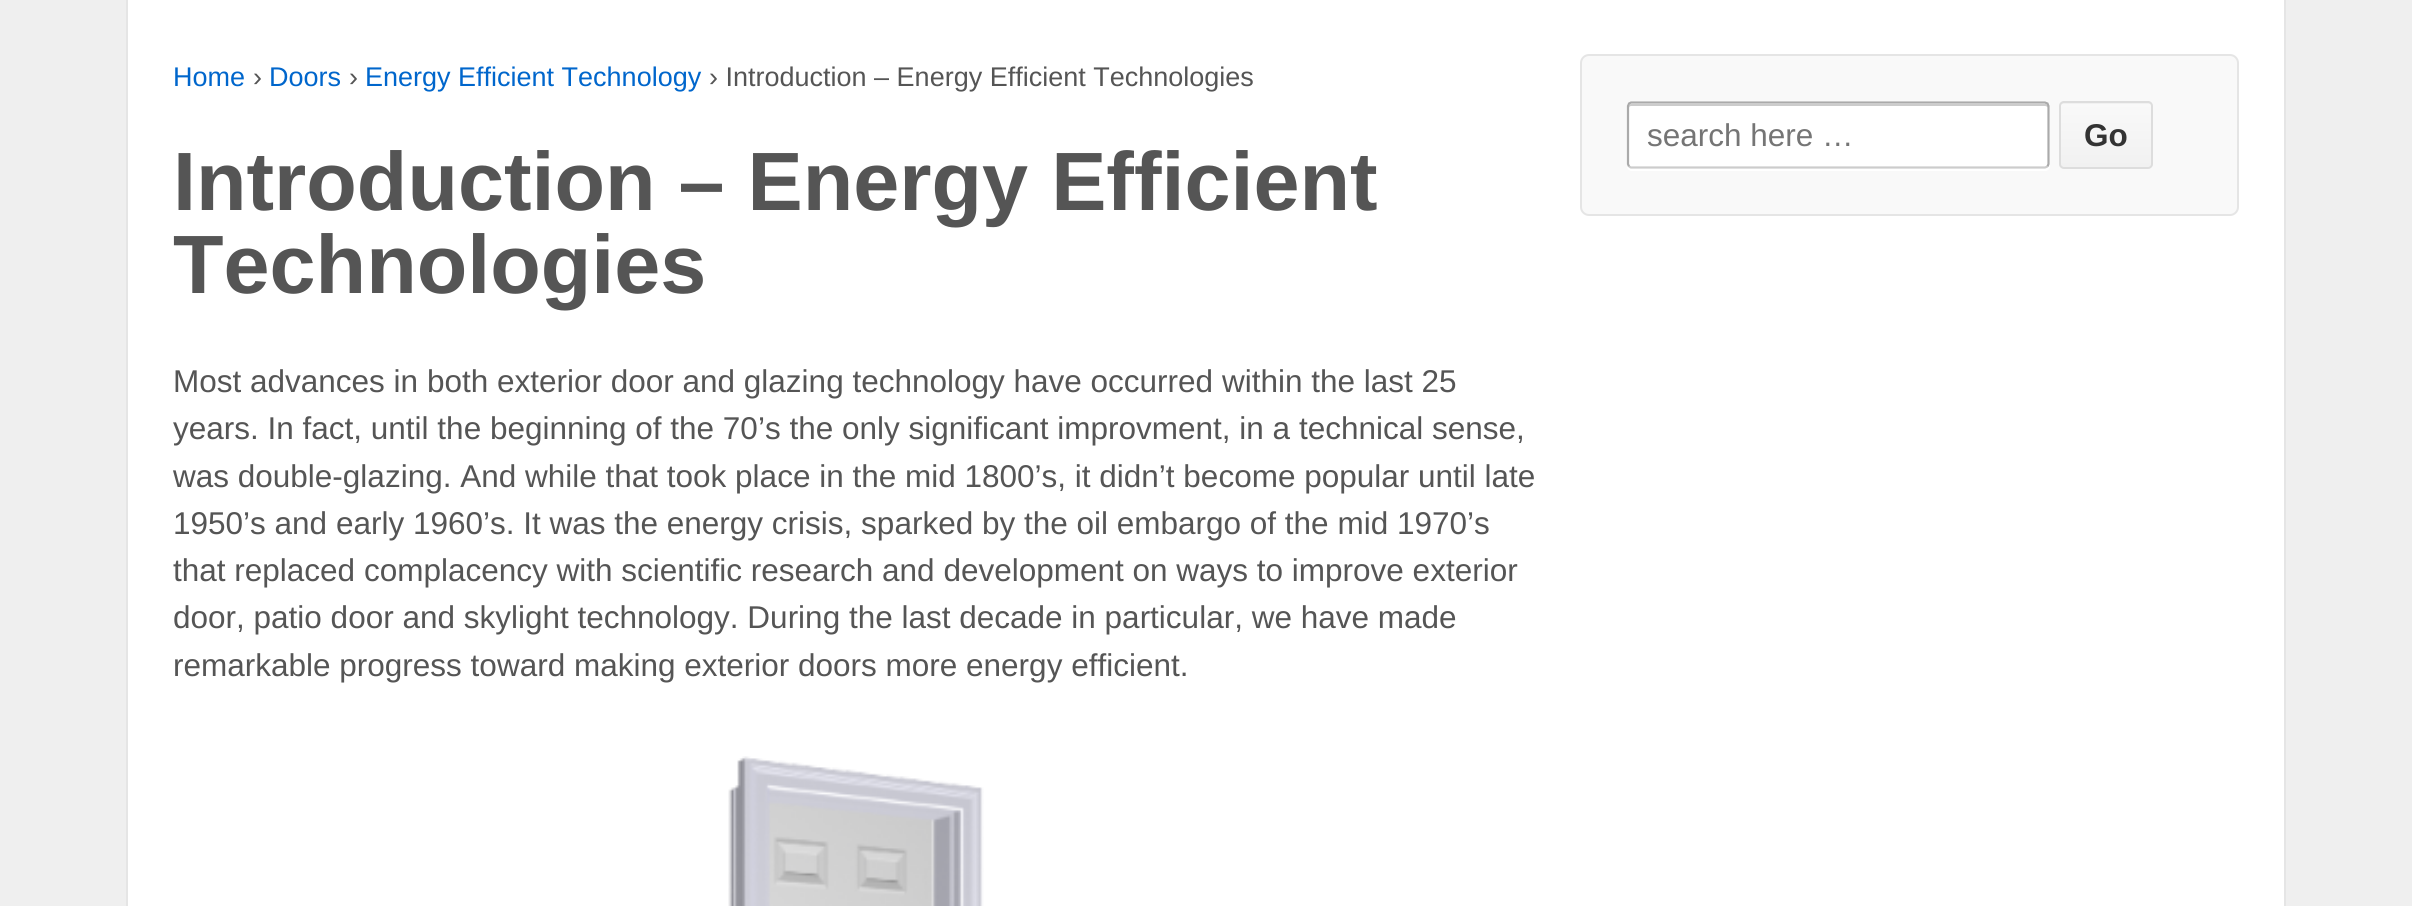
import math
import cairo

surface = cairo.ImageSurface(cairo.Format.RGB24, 2412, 906)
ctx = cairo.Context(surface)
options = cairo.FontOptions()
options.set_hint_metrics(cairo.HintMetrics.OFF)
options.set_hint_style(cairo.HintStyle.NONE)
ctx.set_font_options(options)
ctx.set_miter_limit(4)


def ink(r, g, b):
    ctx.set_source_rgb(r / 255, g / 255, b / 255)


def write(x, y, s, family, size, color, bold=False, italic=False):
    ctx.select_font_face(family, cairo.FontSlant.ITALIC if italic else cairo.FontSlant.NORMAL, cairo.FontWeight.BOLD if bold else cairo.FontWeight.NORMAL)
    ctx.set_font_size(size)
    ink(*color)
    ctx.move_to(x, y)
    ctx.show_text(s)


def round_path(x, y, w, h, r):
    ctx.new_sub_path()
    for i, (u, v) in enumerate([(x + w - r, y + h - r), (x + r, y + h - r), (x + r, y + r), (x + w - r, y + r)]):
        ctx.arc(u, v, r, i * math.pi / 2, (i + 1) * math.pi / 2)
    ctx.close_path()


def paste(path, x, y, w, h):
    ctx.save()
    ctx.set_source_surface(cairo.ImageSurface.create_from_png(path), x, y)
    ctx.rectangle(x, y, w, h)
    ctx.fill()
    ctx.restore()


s1 = dict(family="Liberation Sans", size=27, color=(0, 102, 204))
s2 = dict(family="Liberation Sans", size=27, color=(85, 85, 85))
s3 = dict(family="Liberation Sans", size=82.75, color=(85, 85, 85), bold=True)
s4 = dict(family="Liberation Sans", size=31.5, color=(85, 85, 85))
s5 = dict(family="Liberation Sans", size=31.5, color=(117, 117, 117))
s6 = dict(family="Liberation Sans", size=31.5, color=(51, 51, 51), bold=True)

ink(239, 239, 239)
ctx.paint()
ink(255, 255, 255)
ctx.rectangle(127, -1, 2158, 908)
ctx.fill_preserve()
ink(229, 229, 229)
ctx.stroke()
write(173, 86, "Home", **s1)
write(253, 86, "›", **s2)
write(269, 86, "Doors", **s1)
write(349, 86, "›", **s2)
write(365, 86, "Energy Efficient Technology", **s1)
write(709, 86, "› Introduction – Energy Efficient Technologies", **s2)
write(173, 210, "Introduction – Energy Efficient", **s3)
write(173, 293, "Technologies", **s3)
write(173, 392, "Most advances in both exterior door and glazing technology have occurred within the last 25", **s4)
write(173, 439, "years. In fact, until the beginning of the 70’s the only significant improvment, in a technical sense,", **s4)
write(173, 487, "was double-glazing. And while that took place in the mid 1800’s, it didn’t become popular until late", **s4)
write(173, 534, "1950’s and early 1960’s. It was the energy crisis, sparked by the oil embargo of the mid 1970’s", **s4)
write(173, 581, "that replaced complacency with scientific research and development on ways to improve exterior", **s4)
write(173, 628, "door, patio door and skylight technology. During the last decade in particular, we have made", **s4)
write(173, 676, "remarkable progress toward making exterior doors more energy efficient.", **s4)
paste("pic1.png", 728, 756, 256, 150)
ink(249, 249, 249)
round_path(1581, 55, 657, 160, 8)
ctx.fill_preserve()
ink(229, 229, 229)
ctx.stroke()
ink(255, 255, 255)
ctx.new_path()
ctx.move_to(1627, 166)
ctx.curve_to(1627, 169, 1629, 171, 1632, 171)
ctx.line_to(2045, 171)
ctx.curve_to(2048, 171, 2050, 169, 2050, 166)
ctx.line_to(2050, 107)
ctx.line_to(2050, 164)
ctx.curve_to(2050, 167, 2048, 169, 2045, 169)
ctx.line_to(1631, 169)
ctx.curve_to(1629, 169, 1628, 167, 1627, 166)
ctx.close_path()
ctx.fill()
round_path(1627, 101, 423, 68, 5)
ctx.fill()
ink(204, 204, 204)
ctx.new_path()
ctx.move_to(1631, 106)
ctx.line_to(2045, 106)
ctx.curve_to(2046, 106, 2048, 107, 2048, 108)
ctx.line_to(2048, 105)
ctx.line_to(2046, 104)
ctx.line_to(1631, 104)
ctx.curve_to(1629, 104, 1629, 106, 1629, 108)
ctx.curve_to(1629, 107, 1630, 106, 1631, 106)
ctx.close_path()
ctx.fill()
ctx.new_path()
ctx.move_to(2047.5, 166.5)
ctx.line_to(2045, 167.5)
ctx.line_to(1631, 167.5)
ctx.line_to(1629, 166.5)
ctx.set_line_width(2.2)
ctx.stroke()
ctx.new_path()
ctx.move_to(1629, 166.5)
ctx.line_to(1628, 164)
ctx.line_to(1628, 106)
ctx.line_to(1629, 103.5)
ctx.line_to(1631, 102.5)
ctx.line_to(2045, 102.5)
ctx.line_to(2047.5, 103.5)
ctx.line_to(2048.5, 106)
ctx.line_to(2048.5, 164)
ctx.line_to(2047.5, 166.5)
ink(170, 170, 170)
ctx.stroke()
write(1647, 146, "search here …", **s5)
ctx.save()
round_path(2059, 101, 94, 68, 5)
ctx.clip()
gradient = cairo.LinearGradient(2106, 41, 2106, 104)
gradient.add_color_stop_rgba(0, 0.976, 0.976, 0.976, 1)
gradient.add_color_stop_rgba(1, 0.945, 0.945, 0.945, 1)
ctx.set_source(gradient)
ctx.rectangle(2059, 101, 94, 3)
ctx.fill()
gradient = cairo.LinearGradient(2106, 104, 2106, 167)
gradient.add_color_stop_rgba(0, 0.976, 0.976, 0.976, 1)
gradient.add_color_stop_rgba(1, 0.945, 0.945, 0.945, 1)
ctx.set_source(gradient)
ctx.rectangle(2059, 104, 94, 63)
ctx.fill()
ctx.restore()
round_path(2060, 102, 92, 66, 4)
ink(221, 221, 221)
ctx.set_line_width(2)
ctx.stroke()
write(2084, 146, "Go", **s6)
surface.write_to_png("screenshot.png")
